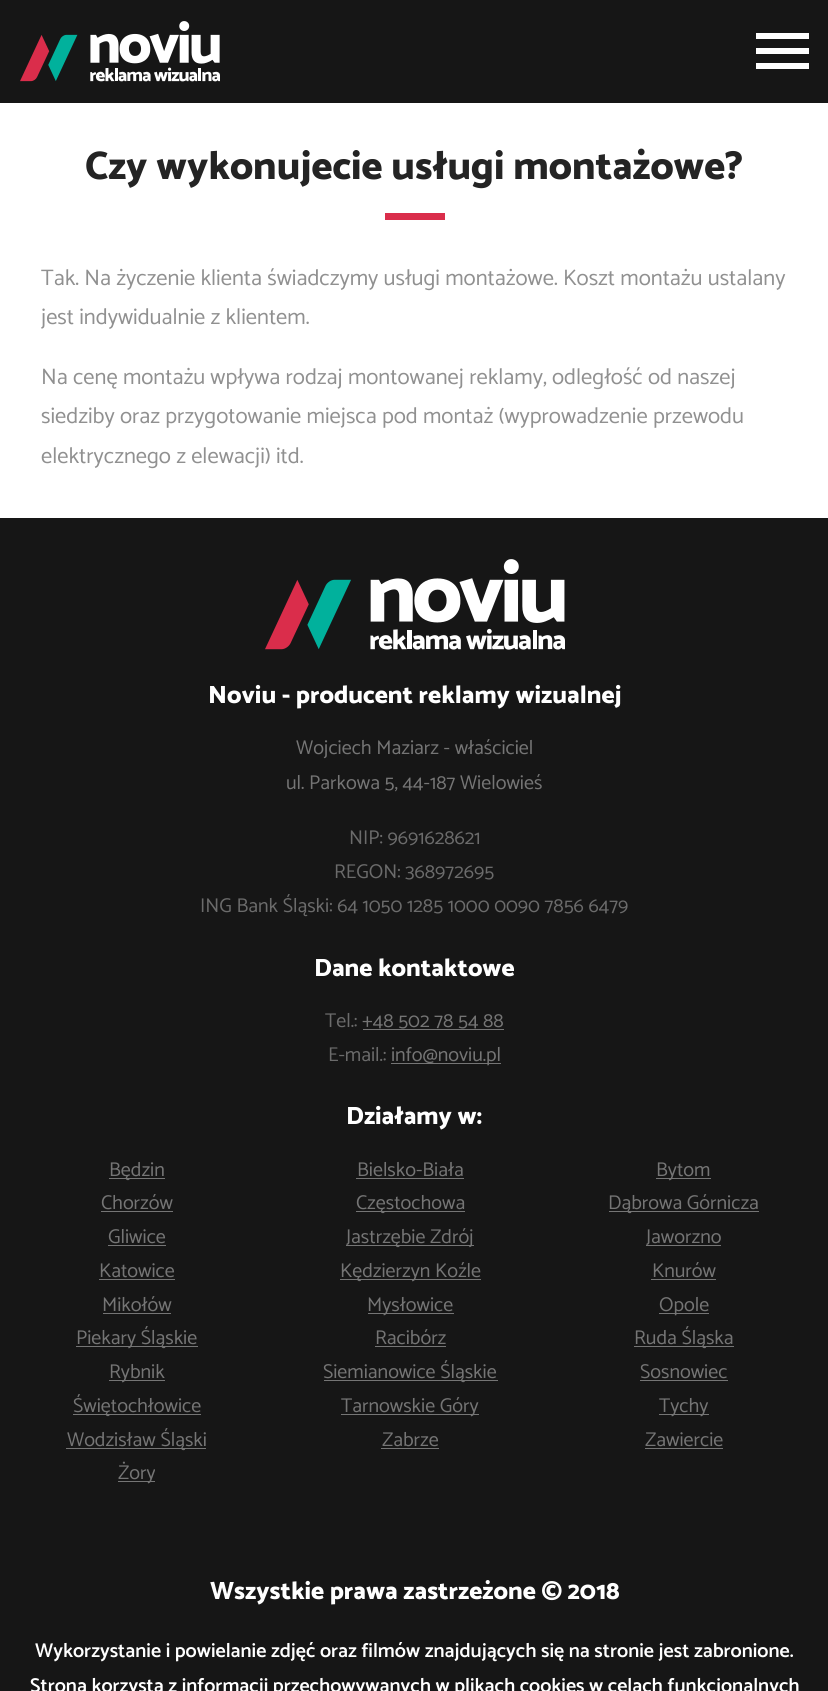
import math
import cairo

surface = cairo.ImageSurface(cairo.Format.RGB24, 828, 1691)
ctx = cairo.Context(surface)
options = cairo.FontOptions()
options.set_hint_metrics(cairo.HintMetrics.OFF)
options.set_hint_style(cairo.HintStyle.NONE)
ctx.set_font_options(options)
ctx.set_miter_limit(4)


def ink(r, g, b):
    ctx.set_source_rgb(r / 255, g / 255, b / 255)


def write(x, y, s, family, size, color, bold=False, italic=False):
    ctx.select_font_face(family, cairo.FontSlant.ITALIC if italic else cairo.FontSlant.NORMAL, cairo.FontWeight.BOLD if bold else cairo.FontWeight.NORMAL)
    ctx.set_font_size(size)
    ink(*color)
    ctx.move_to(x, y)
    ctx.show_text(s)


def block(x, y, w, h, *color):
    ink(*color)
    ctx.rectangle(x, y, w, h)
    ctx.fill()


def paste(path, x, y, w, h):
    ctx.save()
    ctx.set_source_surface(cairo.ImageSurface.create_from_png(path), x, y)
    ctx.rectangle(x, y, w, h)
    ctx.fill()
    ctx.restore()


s1 = dict(family="Catamaran ExtraBold", size=40, color=(36, 36, 36))
s2 = dict(family="Catamaran", size=22.5, color=(144, 144, 144))
s3 = dict(family="Catamaran ExtraBold", size=25, color=(255, 255, 255))
s4 = dict(family="Catamaran", size=20, color=(117, 117, 117))
s5 = dict(family="Catamaran", size=20, color=(107, 107, 107))
s6 = dict(family="Catamaran SemiBold", size=20, color=(255, 255, 255))

ink(255, 255, 255)
ctx.paint()
block(0, 0, 828, 103, 22, 22, 22)
paste("pic1.png", 20, 21, 200, 61)
block(756, 33, 53, 6, 255, 255, 255)
block(756, 48, 53, 6, 255, 255, 255)
block(756, 63, 53, 6, 255, 255, 255)
write(85, 179, "Czy wykonujecie usługi montażowe?", **s1)
block(385, 213, 60, 7, 218, 45, 75)
write(41, 285, "Tak. Na życzenie klienta świadczymy usługi montażowe. Koszt montażu ustalany", **s2)
write(41, 324, "jest indywidualnie z klientem.", **s2)
write(41, 384, "Na cenę montażu wpływa rodzaj montowanej reklamy, odległość od naszej", **s2)
write(41, 423, "siedziby oraz przygotowanie miejsca pod montaż (wyprowadzenie przewodu", **s2)
write(41, 463, "elektrycznego z elewacji) itd.", **s2)
block(0, 518, 828, 1173, 22, 22, 22)
paste("pic2.png", 265, 559, 300, 91)
write(208, 703, "Noviu - producent reklamy wizualnej", **s3)
write(296, 754, "Wojciech Maziarz - właściciel", **s4)
write(286, 789, "ul. Parkowa 5, 44-187 Wielowieś", **s4)
write(349, 844, "NIP: 9691628621", **s5)
write(334, 878, "REGON: 368972695", **s5)
write(200, 912, "ING Bank Śląski: 64 1050 1285 1000 0090 7856 6479", **s5)
write(314, 976, "Dane kontaktowe", **s3)
write(325, 1027, "Tel.:", **s5)
write(362, 1027, "+48 502 78 54 88", **s4)
block(363, 1029, 141, 1, 117, 117, 117)
write(328, 1061, "E-mail.:", **s5)
block(391, 1063, 110, 1, 117, 117, 117)
write(391, 1061, "info@noviu.pl", **s4)
write(346, 1124, "Działamy w:", **s3)
block(109, 1178, 56, 1, 117, 117, 117)
write(109, 1176, "Będzin", **s4)
write(357, 1176, "Bielsko-Biała", **s4)
block(356, 1178, 108, 1, 117, 117, 117)
block(656, 1178, 55, 1, 117, 117, 117)
write(656, 1176, "Bytom", **s4)
write(101, 1209, "Chorzów", **s4)
block(101, 1211, 72, 1, 117, 117, 117)
block(356, 1211, 109, 1, 117, 117, 117)
write(356, 1209, "Częstochowa", **s4)
block(609, 1211, 150, 1, 117, 117, 117)
write(608, 1209, "Dąbrowa Górnicza", **s4)
write(108, 1243, "Gliwice", **s4)
block(108, 1245, 58, 1, 117, 117, 117)
block(346, 1245, 128, 1, 117, 117, 117)
write(346, 1243, "Jastrzębie Zdrój", **s4)
write(646, 1243, "Jaworzno", **s4)
block(646, 1245, 75, 1, 117, 117, 117)
write(99, 1277, "Katowice", **s4)
block(99, 1279, 76, 1, 117, 117, 117)
block(340, 1279, 141, 1, 117, 117, 117)
write(340, 1277, "Kędzierzyn Koźle", **s4)
write(652, 1277, "Knurów", **s4)
block(651, 1279, 65, 1, 117, 117, 117)
write(102, 1311, "Mikołów", **s4)
block(103, 1313, 68, 1, 117, 117, 117)
block(368, 1313, 86, 1, 117, 117, 117)
write(367, 1311, "Mysłowice", **s4)
block(659, 1313, 50, 1, 117, 117, 117)
write(659, 1311, "Opole", **s4)
block(76, 1346, 122, 1, 117, 117, 117)
write(76, 1344, "Piekary Śląskie", **s4)
write(375, 1344, "Racibórz", **s4)
block(375, 1346, 71, 1, 117, 117, 117)
block(634, 1346, 100, 1, 117, 117, 117)
write(634, 1344, "Ruda Śląska", **s4)
block(109, 1380, 56, 1, 117, 117, 117)
write(109, 1378, "Rybnik", **s4)
block(324, 1380, 174, 1, 117, 117, 117)
write(323, 1378, "Siemianowice Śląskie", **s4)
write(640, 1378, "Sosnowiec", **s4)
block(640, 1380, 88, 1, 117, 117, 117)
block(73, 1414, 128, 1, 117, 117, 117)
write(73, 1412, "Świętochłowice", **s4)
block(341, 1414, 138, 1, 117, 117, 117)
write(341, 1412, "Tarnowskie Góry", **s4)
block(659, 1414, 50, 1, 117, 117, 117)
write(659, 1412, "Tychy", **s4)
block(66, 1448, 140, 1, 117, 117, 117)
write(67, 1446, "Wodzisław Śląski", **s4)
write(382, 1446, "Zabrze", **s4)
block(381, 1448, 58, 1, 117, 117, 117)
write(645, 1446, "Zawiercie", **s4)
block(645, 1448, 78, 1, 117, 117, 117)
block(118, 1481, 37, 1, 117, 117, 117)
write(118, 1479, "Żory", **s4)
write(210, 1599, "Wszystkie prawa zastrzeżone © 2018", **s3)
write(35, 1657, "Wykorzystanie i powielanie zdjęć oraz filmów znajdujących się na stronie jest zabronione.", **s6)
write(30, 1692, "Strona korzysta z informacji przechowywanych w plikach cookies w celach funkcjonalnych", **s6)
surface.write_to_png("screenshot.png")
